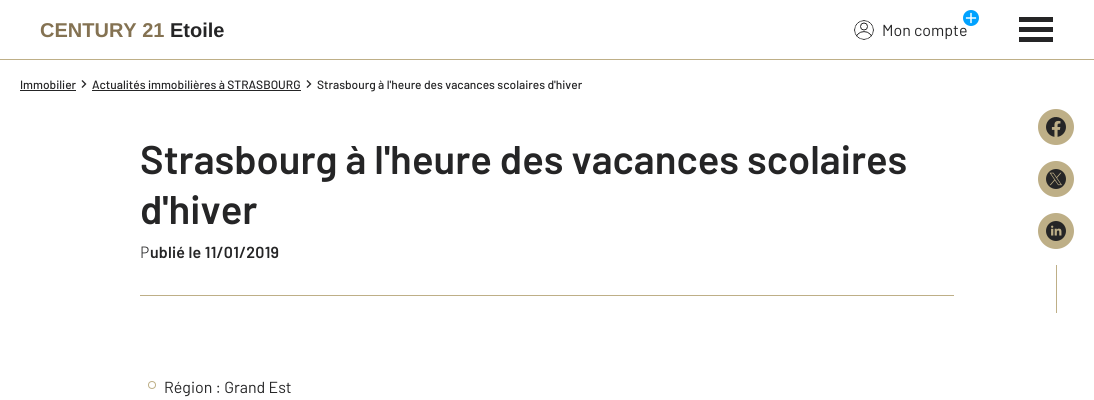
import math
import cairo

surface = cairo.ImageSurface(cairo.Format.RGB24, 1094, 400)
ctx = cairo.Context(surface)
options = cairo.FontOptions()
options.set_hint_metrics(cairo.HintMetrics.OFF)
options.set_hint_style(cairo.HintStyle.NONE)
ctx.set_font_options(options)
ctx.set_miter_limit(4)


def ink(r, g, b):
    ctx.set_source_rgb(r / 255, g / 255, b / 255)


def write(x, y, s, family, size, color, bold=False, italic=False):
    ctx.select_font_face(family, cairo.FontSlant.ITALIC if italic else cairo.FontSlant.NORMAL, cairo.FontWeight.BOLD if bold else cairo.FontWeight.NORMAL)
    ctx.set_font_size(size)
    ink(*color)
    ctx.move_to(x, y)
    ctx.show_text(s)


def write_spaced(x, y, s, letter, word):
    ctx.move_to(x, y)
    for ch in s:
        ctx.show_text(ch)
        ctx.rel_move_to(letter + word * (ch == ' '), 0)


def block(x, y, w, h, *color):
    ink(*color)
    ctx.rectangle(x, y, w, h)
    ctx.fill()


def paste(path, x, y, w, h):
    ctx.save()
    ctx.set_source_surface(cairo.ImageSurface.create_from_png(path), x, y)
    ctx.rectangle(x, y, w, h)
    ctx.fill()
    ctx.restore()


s1 = dict(family="Liberation Sans", size=20, color=(132, 114, 82), bold=True)
s2 = dict(family="Liberation Sans", size=20, color=(37, 37, 38), bold=True)
s3 = dict(family="Barlow", size=16, color=(37, 37, 38))
s4 = dict(family="Barlow Medium", size=12, color=(37, 37, 38))
s5 = dict(family="Barlow SemiBold", size=40, color=(37, 37, 38))

ink(255, 255, 255)
ctx.paint()
block(0, 59, 1094, 1, 190, 175, 135)
write(40, 37, "CENTURY 21", **s1)
write(170, 37, "Etoile", **s2)
write(882, 36, "Mon compte", **s3)
paste("pic1.png", 963, 10, 16, 16)
paste("pic2.png", 854, 20, 20, 20)
block(1019, 37, 34, 5, 37, 37, 38)
block(1019, 17, 34, 5, 37, 37, 38)
block(1019, 27, 34, 5, 37, 37, 38)
write(20, 89, "Immobilier", **s4)
block(20, 90, 56, 1, 37, 37, 38)
paste("pic3.png", 81, 80, 6, 8)
write(92, 89, "Actualités immobilières à STRASBOURG", **s4)
block(92, 90, 209, 1, 37, 37, 38)
paste("pic3.png", 306, 80, 6, 8)
write(317, 89, "Strasbourg à l'heure des vacances scolaires d'hiver", **s4)
write(140, 174, "Strasbourg à l'heure des vacances scolaires", **s5)
write(140, 224, "d'hiver", **s5)
ctx.select_font_face("Noto Sans Light")
ctx.set_font_size(16)
write_spaced(140, 258, "P", 0.2, 0)
ctx.select_font_face("Barlow SemiBold")
write_spaced(150, 258, "ublié le 11/01/2019", 0.2, 0)
block(140, 295, 814, 1, 190, 175, 135)
ctx.new_path()
ctx.arc(152, 385, 3.5, 0, 2 * math.pi)
ctx.set_line_width(1)
ctx.stroke()
write(164, 393, "Région : Grand Est", **s3)
ink(190, 175, 135)
ctx.new_path()
ctx.arc(1056, 127, 18, 0, 2 * math.pi)
ctx.fill()
paste("pic4.png", 1046, 117, 20, 20)
ctx.arc(1056, 179, 18, 0, 2 * math.pi)
ctx.fill()
paste("pic5.png", 1046, 169, 20, 20)
ctx.arc(1056, 231, 18, 0, 2 * math.pi)
ctx.fill()
paste("pic6.png", 1046, 221, 20, 20)
block(1056, 265, 1, 48, 190, 175, 135)
surface.write_to_png("screenshot.png")
